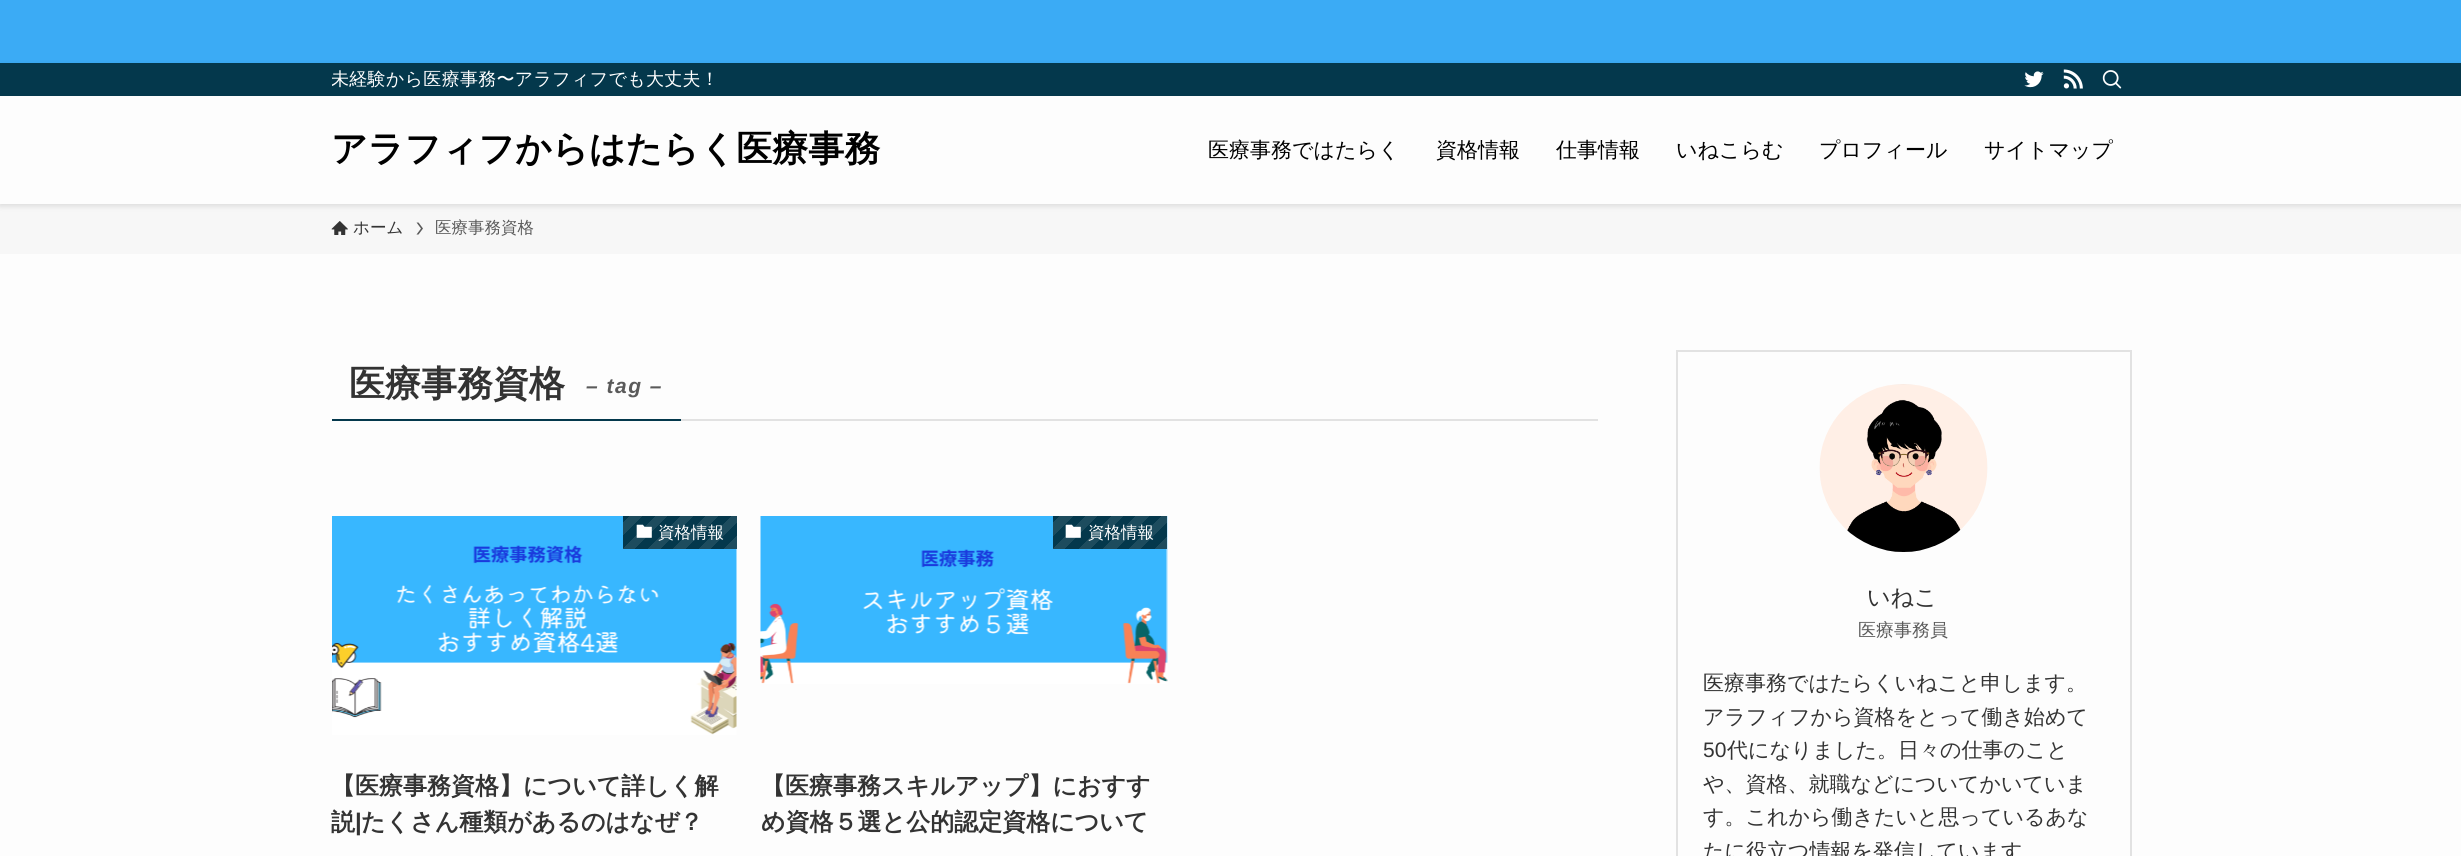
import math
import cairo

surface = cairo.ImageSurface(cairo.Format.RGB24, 2461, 856)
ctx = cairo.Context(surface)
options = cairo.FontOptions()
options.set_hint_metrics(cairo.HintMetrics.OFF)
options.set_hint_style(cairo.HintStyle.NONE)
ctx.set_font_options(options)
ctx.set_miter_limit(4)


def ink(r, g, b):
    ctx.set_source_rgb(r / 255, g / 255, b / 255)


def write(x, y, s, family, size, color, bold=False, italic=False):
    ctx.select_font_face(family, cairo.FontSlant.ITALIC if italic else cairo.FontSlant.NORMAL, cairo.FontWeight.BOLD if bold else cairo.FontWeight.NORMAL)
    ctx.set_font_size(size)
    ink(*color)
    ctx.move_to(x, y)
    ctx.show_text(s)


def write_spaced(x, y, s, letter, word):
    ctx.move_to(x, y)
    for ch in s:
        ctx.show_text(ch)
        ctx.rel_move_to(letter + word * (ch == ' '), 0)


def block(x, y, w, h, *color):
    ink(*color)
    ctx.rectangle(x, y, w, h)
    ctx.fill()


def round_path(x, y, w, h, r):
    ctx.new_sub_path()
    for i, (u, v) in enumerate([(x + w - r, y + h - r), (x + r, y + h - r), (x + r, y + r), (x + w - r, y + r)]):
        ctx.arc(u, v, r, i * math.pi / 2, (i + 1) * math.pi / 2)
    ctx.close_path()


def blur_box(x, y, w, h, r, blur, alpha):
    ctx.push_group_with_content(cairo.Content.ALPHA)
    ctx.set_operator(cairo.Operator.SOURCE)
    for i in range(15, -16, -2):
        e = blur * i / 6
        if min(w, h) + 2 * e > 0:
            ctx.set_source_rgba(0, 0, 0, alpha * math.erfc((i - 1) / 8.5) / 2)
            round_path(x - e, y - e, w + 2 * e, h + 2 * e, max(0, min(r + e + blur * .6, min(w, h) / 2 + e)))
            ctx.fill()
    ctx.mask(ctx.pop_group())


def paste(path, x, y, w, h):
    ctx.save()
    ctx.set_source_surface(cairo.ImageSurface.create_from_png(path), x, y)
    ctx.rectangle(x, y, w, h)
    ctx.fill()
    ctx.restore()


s1 = dict(family="WenQuanYi Zen Hei", size=36, color=(0, 0, 0), bold=True)
s2 = dict(family="WenQuanYi Zen Hei Medium", size=21, color=(0, 0, 0))
s3 = dict(family="WenQuanYi Zen Hei Medium", size=16.5, color=(51, 51, 51))
s4 = dict(family="WenQuanYi Zen Hei Medium", size=16.5, color=(90, 90, 90))
s5 = dict(family="WenQuanYi Zen Hei", size=36, color=(51, 51, 51), bold=True)
s6 = dict(family="WenQuanYi Zen Hei Medium", size=16.5, color=(255, 255, 255))
s7 = dict(family="WenQuanYi Zen Hei", size=24, color=(51, 51, 51), bold=True)
s8 = dict(family="Liberation Sans", size=24, color=(51, 51, 51), bold=True)
s9 = dict(family="WenQuanYi Zen Hei Medium", size=23, color=(51, 51, 51))
s10 = dict(family="WenQuanYi Zen Hei Medium", size=18, color=(90, 90, 90))
s11 = dict(family="WenQuanYi Zen Hei Medium", size=21, color=(51, 51, 51))
s12 = dict(family="Liberation Sans", size=21, color=(51, 51, 51))

ink(253, 253, 253)
ctx.paint()
block(0, 0, 2461, 63, 59, 171, 245)
block(0, 204, 2461, 50, 247, 247, 247)
ctx.save()
ctx.set_fill_rule(cairo.FillRule.EVEN_ODD)
ctx.new_path()
ctx.move_to(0, 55)
ctx.line_to(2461, 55)
ctx.line_to(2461, 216)
ctx.line_to(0, 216)
ctx.close_path()
ctx.move_to(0, 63)
ctx.line_to(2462, 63)
ctx.line_to(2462, 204)
ctx.line_to(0, 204)
ctx.close_path()
ctx.clip()
ink(0, 0, 0)
blur_box(0, 65, 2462, 141, 0, 3, 0.12)
ctx.restore()
block(0, 63, 2461, 33, 4, 56, 76)
ctx.save()
ctx.rectangle(332, 63, 900, 33)
ctx.clip()
ctx.select_font_face("WenQuanYi Zen Hei Medium")
ctx.set_font_size(18)
ink(255, 255, 255)
write_spaced(331, 85, "未経験から医療事務〜アラフィフでも大丈夫！", 0.3, 0)
ctx.restore()
paste("pic1.png", 2024, 71, 20, 17)
paste("pic2.png", 2063, 69, 20, 20)
paste("pic3.png", 2102, 70, 20, 19)
write(331, 161, "アラフィフからはたらく医療事務", **s1)
write(1208, 157, "医療事務ではたらく", **s2)
write(1436, 157, "資格情報", **s2)
write(1556, 157, "仕事情報", **s2)
write(1676, 157, "いねこらむ", **s2)
write(1819, 157, "プロフィール", **s2)
write(1984, 157, "サイトマップ", **s2)
paste("pic4.png", 331, 221, 17, 14)
write(353, 233, "ホーム", **s3)
ink(90, 90, 90)
ctx.new_path()
ctx.move_to(418.5, 222.5)
ctx.line_to(416.5, 222.5)
ctx.line_to(421, 228.5)
ctx.line_to(416.5, 234.5)
ctx.line_to(418.5, 234.5)
ctx.line_to(423, 228.5)
ctx.close_path()
ctx.fill()
write(435, 233, "医療事務資格", **s4)
block(681, 419, 917, 2, 226, 226, 226)
block(332, 419, 349, 2, 4, 56, 76)
write(349, 396, "医療事務資格", **s5)
ctx.select_font_face("Liberation Sans", cairo.FontSlant.ITALIC, cairo.FontWeight.BOLD)
ctx.set_font_size(21)
ink(90, 90, 90)
write_spaced(586, 393, "– tag –", 1.5, 0)
paste("pic5.png", 332, 516, 405, 219)
gradient = cairo.LinearGradient(716, 569, 640, 493)
gradient.add_color_stop_rgba(0, 0.114, 0.298, 0.369, 1)
gradient.add_color_stop_rgba(0.08, 0.114, 0.298, 0.369, 1)
gradient.add_color_stop_rgba(0.08, 0.016, 0.22, 0.298, 1)
gradient.add_color_stop_rgba(0.17, 0.016, 0.22, 0.298, 1)
gradient.add_color_stop_rgba(0.17, 0.114, 0.298, 0.369, 1)
gradient.add_color_stop_rgba(0.25, 0.114, 0.298, 0.369, 1)
gradient.add_color_stop_rgba(0.25, 0.016, 0.22, 0.298, 1)
gradient.add_color_stop_rgba(0.33, 0.016, 0.22, 0.298, 1)
gradient.add_color_stop_rgba(0.33, 0.114, 0.298, 0.369, 1)
gradient.add_color_stop_rgba(0.42, 0.114, 0.298, 0.369, 1)
gradient.add_color_stop_rgba(0.42, 0.016, 0.22, 0.298, 1)
gradient.add_color_stop_rgba(0.5, 0.016, 0.22, 0.298, 1)
gradient.add_color_stop_rgba(0.5, 0.114, 0.298, 0.369, 1)
gradient.add_color_stop_rgba(0.58, 0.114, 0.298, 0.369, 1)
gradient.add_color_stop_rgba(0.58, 0.016, 0.22, 0.298, 1)
gradient.add_color_stop_rgba(0.67, 0.016, 0.22, 0.298, 1)
gradient.add_color_stop_rgba(0.67, 0.114, 0.298, 0.369, 1)
gradient.add_color_stop_rgba(0.75, 0.114, 0.298, 0.369, 1)
gradient.add_color_stop_rgba(0.75, 0.016, 0.22, 0.298, 1)
gradient.add_color_stop_rgba(0.83, 0.016, 0.22, 0.298, 1)
gradient.add_color_stop_rgba(0.83, 0.114, 0.298, 0.369, 1)
gradient.add_color_stop_rgba(0.92, 0.114, 0.298, 0.369, 1)
gradient.add_color_stop_rgba(0.92, 0.016, 0.22, 0.298, 1)
gradient.add_color_stop_rgba(1, 0.016, 0.22, 0.298, 1)
ctx.set_source(gradient)
ctx.rectangle(623, 516, 114, 33)
ctx.fill()
paste("pic6.png", 636, 524, 16, 14)
write(658, 538, "資格情報", **s6)
write(331, 794, "【医療事務資格】について詳しく解", **s7)
write(331, 830, "説", **s7)
write(355, 830, "|", **s8)
write(361, 830, "たくさん種類があるのはなぜ？", **s7)
paste("pic7.png", 760, 516, 408, 168)
gradient = cairo.LinearGradient(1147, 569, 1070, 493)
gradient.add_color_stop_rgba(0, 0.114, 0.298, 0.369, 1)
gradient.add_color_stop_rgba(0.08, 0.114, 0.298, 0.369, 1)
gradient.add_color_stop_rgba(0.08, 0.016, 0.22, 0.298, 1)
gradient.add_color_stop_rgba(0.17, 0.016, 0.22, 0.298, 1)
gradient.add_color_stop_rgba(0.17, 0.114, 0.298, 0.369, 1)
gradient.add_color_stop_rgba(0.25, 0.114, 0.298, 0.369, 1)
gradient.add_color_stop_rgba(0.25, 0.016, 0.22, 0.298, 1)
gradient.add_color_stop_rgba(0.33, 0.016, 0.22, 0.298, 1)
gradient.add_color_stop_rgba(0.33, 0.114, 0.298, 0.369, 1)
gradient.add_color_stop_rgba(0.42, 0.114, 0.298, 0.369, 1)
gradient.add_color_stop_rgba(0.42, 0.016, 0.22, 0.298, 1)
gradient.add_color_stop_rgba(0.5, 0.016, 0.22, 0.298, 1)
gradient.add_color_stop_rgba(0.5, 0.114, 0.298, 0.369, 1)
gradient.add_color_stop_rgba(0.58, 0.114, 0.298, 0.369, 1)
gradient.add_color_stop_rgba(0.58, 0.016, 0.22, 0.298, 1)
gradient.add_color_stop_rgba(0.67, 0.016, 0.22, 0.298, 1)
gradient.add_color_stop_rgba(0.67, 0.114, 0.298, 0.369, 1)
gradient.add_color_stop_rgba(0.75, 0.114, 0.298, 0.369, 1)
gradient.add_color_stop_rgba(0.75, 0.016, 0.22, 0.298, 1)
gradient.add_color_stop_rgba(0.83, 0.016, 0.22, 0.298, 1)
gradient.add_color_stop_rgba(0.83, 0.114, 0.298, 0.369, 1)
gradient.add_color_stop_rgba(0.92, 0.114, 0.298, 0.369, 1)
gradient.add_color_stop_rgba(0.92, 0.016, 0.22, 0.298, 1)
gradient.add_color_stop_rgba(1, 0.016, 0.22, 0.298, 1)
ctx.set_source(gradient)
ctx.rectangle(1053, 516, 114, 33)
ctx.fill()
paste("pic8.png", 1065, 524, 16, 14)
write(1088, 538, "資格情報", **s6)
write(761, 794, "【医療事務スキルアップ】におすす", **s7)
write(761, 830, "め資格５選と公的認定資格について", **s7)
ctx.rectangle(1677, 351, 454, 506)
ink(226, 226, 226)
ctx.stroke()
paste("pic9.png", 1819, 384, 169, 168)
write(1867, 605, "いねこ", **s9)
write(1858, 636, "医療事務員", **s10)
write(1703, 690, "医療事務ではたらくいねこと申します。", **s11)
write(1703, 724, "アラフィフから資格をとって働き始めて", **s11)
write(1703, 757, "50", **s12)
write(1727, 757, "代になりました。日々の仕事のこと", **s11)
write(1703, 791, "や、資格、就職などについてかいていま", **s11)
write(1703, 824, "す。これから働きたいと思っているあな", **s11)
write(1703, 858, "たに役立つ情報を発信しています", **s11)
surface.write_to_png("screenshot.png")
